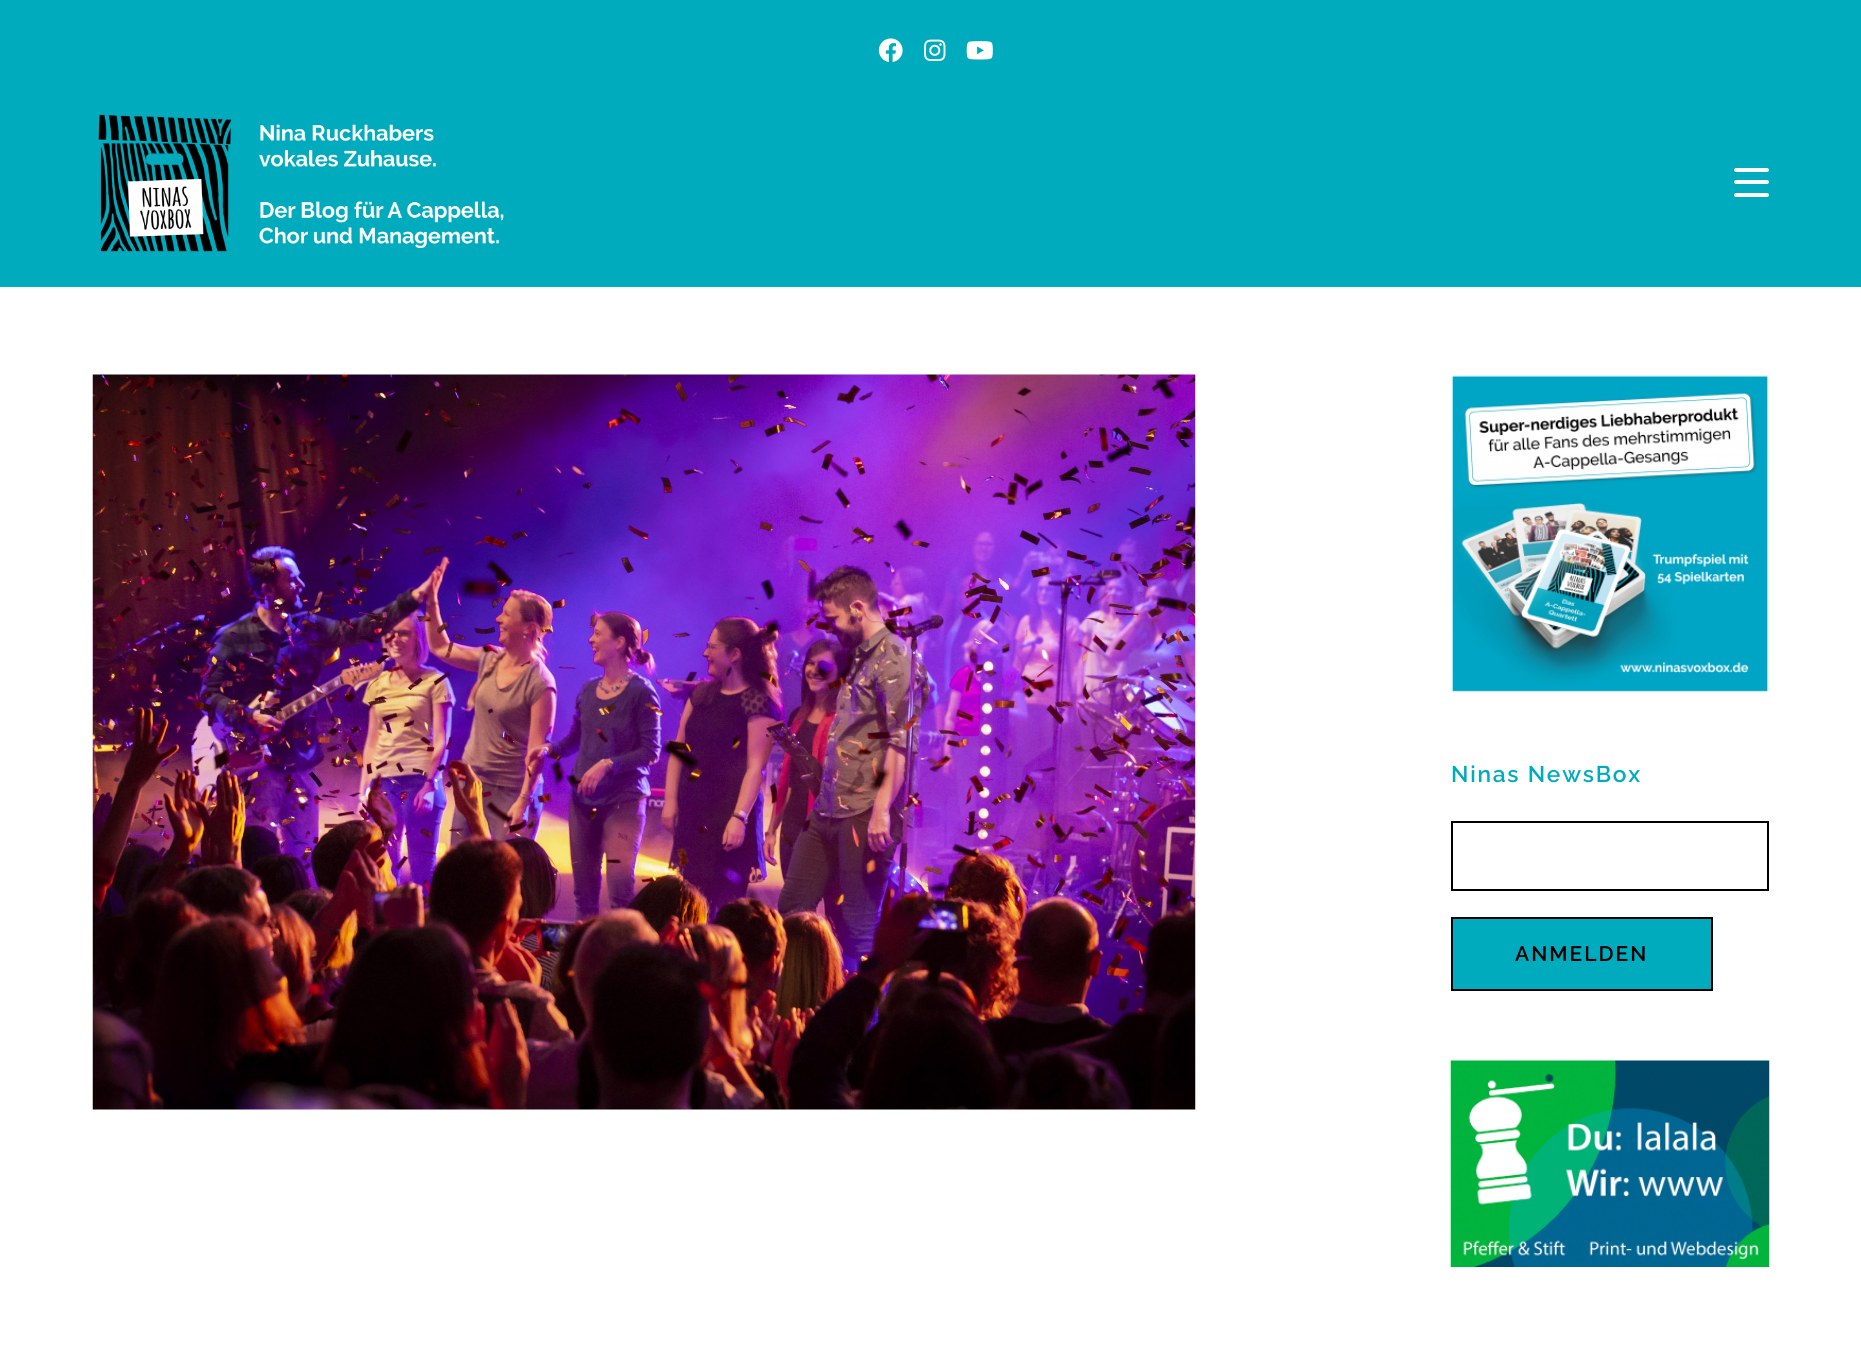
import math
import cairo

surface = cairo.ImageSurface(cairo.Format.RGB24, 1861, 1349)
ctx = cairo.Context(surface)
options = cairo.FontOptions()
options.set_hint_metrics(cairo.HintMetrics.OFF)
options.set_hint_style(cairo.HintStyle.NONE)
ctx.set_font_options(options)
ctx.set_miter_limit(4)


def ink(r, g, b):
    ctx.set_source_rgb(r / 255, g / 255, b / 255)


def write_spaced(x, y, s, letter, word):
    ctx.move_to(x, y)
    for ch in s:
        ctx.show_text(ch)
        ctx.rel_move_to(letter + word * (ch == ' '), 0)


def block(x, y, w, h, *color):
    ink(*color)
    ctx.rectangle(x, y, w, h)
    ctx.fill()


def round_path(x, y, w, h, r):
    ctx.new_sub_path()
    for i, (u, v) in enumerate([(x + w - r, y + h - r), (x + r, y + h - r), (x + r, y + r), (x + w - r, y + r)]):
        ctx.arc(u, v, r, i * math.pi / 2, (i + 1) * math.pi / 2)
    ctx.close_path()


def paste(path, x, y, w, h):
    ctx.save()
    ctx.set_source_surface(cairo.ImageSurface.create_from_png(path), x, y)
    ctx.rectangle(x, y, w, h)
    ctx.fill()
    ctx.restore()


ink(255, 255, 255)
ctx.paint()
block(0, 0, 1861, 287, 0, 171, 189)
paste("pic1.png", 98, 114, 406, 138)
ink(255, 255, 255)
round_path(1734, 193, 35, 4, 2)
ctx.fill()
round_path(1734, 168, 35, 4, 2)
ctx.fill()
round_path(1734, 180, 35, 4, 2)
ctx.fill()
paste("pic2.png", 878, 38, 25, 24)
paste("pic3.png", 924, 39, 22, 22)
paste("pic4.png", 966, 41, 27, 19)
paste("pic5.png", 92, 374, 1104, 736)
paste("pic6.png", 1451, 375, 318, 317)
ctx.select_font_face("Raleway Thin")
ctx.set_font_size(22.75)
ink(0, 171, 189)
write_spaced(1451, 782, "Ninas NewsBox", 1.75, 0)
ctx.rectangle(1452, 822, 316, 68)
ink(0, 0, 0)
ctx.stroke()
ink(0, 171, 189)
ctx.rectangle(1452, 918, 260, 72)
ctx.fill_preserve()
ink(0, 0, 0)
ctx.stroke()
ctx.set_font_size(21)
write_spaced(1515, 961, "ANMELDEN", 2, 0)
paste("pic7.png", 1450, 1060, 320, 207)
surface.write_to_png("screenshot.png")
